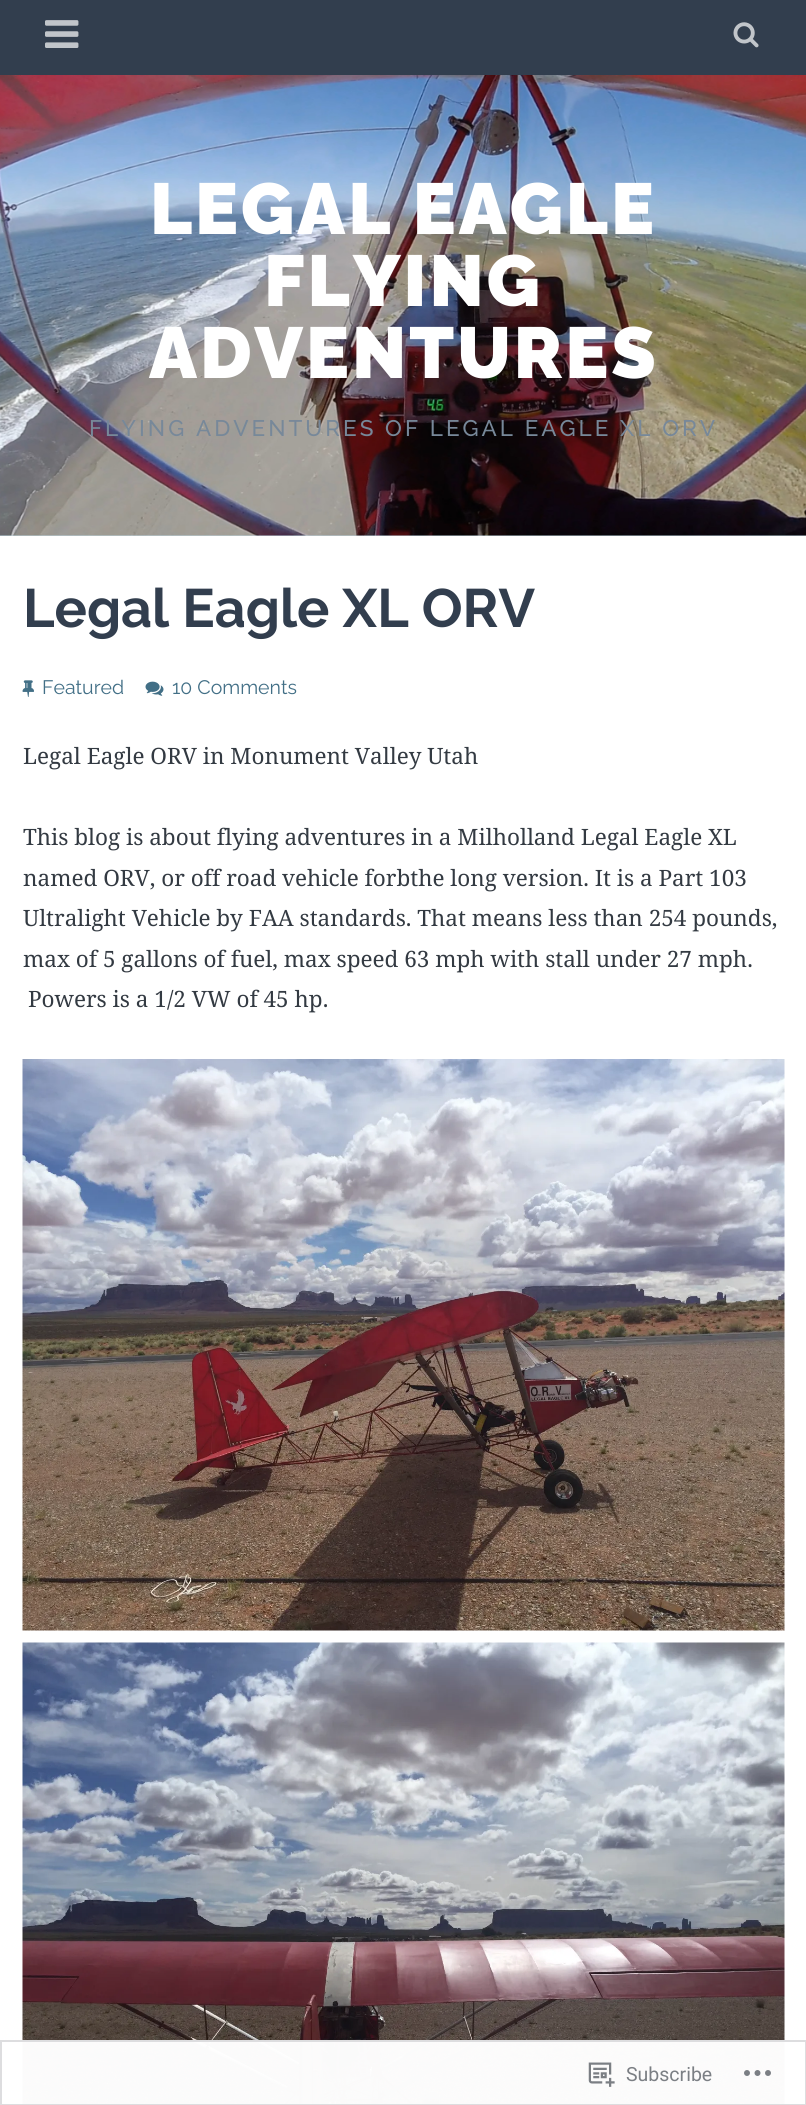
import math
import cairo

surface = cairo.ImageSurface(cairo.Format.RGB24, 806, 2105)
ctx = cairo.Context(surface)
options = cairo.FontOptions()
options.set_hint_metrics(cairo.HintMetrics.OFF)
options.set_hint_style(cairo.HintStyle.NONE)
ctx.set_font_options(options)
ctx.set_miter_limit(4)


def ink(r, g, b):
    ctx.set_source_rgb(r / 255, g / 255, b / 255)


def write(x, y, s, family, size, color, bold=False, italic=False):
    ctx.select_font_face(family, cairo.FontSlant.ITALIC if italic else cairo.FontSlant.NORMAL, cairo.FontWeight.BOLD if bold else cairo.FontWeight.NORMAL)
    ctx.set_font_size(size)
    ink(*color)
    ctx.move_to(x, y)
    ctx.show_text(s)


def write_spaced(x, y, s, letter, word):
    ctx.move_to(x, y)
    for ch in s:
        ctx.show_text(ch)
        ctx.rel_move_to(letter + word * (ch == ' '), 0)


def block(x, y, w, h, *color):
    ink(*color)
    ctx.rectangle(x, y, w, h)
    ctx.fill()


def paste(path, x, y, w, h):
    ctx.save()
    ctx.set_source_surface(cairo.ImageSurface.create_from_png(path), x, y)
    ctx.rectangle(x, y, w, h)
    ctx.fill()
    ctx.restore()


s1 = dict(family="Raleway", size=54, color=(50, 62, 78), bold=True)
s2 = dict(family="Raleway", size=19.5, color=(66, 111, 134))
s3 = dict(family="Noto Serif", size=22.5, color=(51, 58, 66))
s4 = dict(family="Roboto", size=19.5, color=(123, 127, 132))

ink(255, 255, 255)
ctx.paint()
block(0, 0, 806, 75, 50, 62, 78)
paste("pic1.png", 45, 20, 34, 28)
paste("pic2.png", 733, 22, 26, 26)
block(0, 535, 806, 1, 190, 212, 223)
paste("pic3.png", 0, 75, 806, 461)
ctx.select_font_face("Raleway Black")
ctx.set_font_size(72)
ink(255, 255, 255)
write_spaced(150, 234, "LEGAL EAGLE", 3, 0)
write_spaced(264, 306, "FLYING", 3, 0)
write_spaced(149, 378, "ADVENTURES", 3, 0)
ctx.select_font_face("Raleway Medium")
ctx.set_font_size(22.5)
ink(119, 136, 153)
write_spaced(89, 436, "FLYING ADVENTURES OF LEGAL EAGLE XL ORV", 3, 0)
write(23, 627, "Legal Eagle XL ORV", **s1)
paste("pic4.png", 22, 680, 12, 17)
write(42, 694, "Featured", **s2)
paste("pic5.png", 145, 681, 19, 15)
write(172, 694, "10 Comments", **s2)
write(23, 764, "Legal Eagle ORV in Monument Valley Utah", **s3)
write(23, 845, "This blog is about flying adventures in a Milholland Legal Eagle XL", **s3)
write(23, 886, "named ORV, or off road vehicle forbthe long version. It is a Part 103", **s3)
write(23, 926, "Ultralight Vehicle by FAA standards. That means less than 254 pounds,", **s3)
write(23, 967, "max of 5 gallons of fuel, max speed 63 mph with stall under 27 mph.", **s3)
write(28, 1007, "Powers is a 1/2 VW of 45 hp.", **s3)
paste("pic6.png", 22, 1059, 763, 572)
paste("pic7.png", 22, 1642, 763, 463)
ctx.set_source_rgba(1, 1, 1, 0.98)
ctx.rectangle(22, 2040, 763, 65)
ctx.fill()
ctx.rectangle(1, 2041, 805, 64)
ctx.set_source_rgba(0.863, 0.863, 0.871, 0.98)
ctx.stroke()
paste("pic8.png", 588, 2062, 27, 25)
write(626, 2081, "Subscribe", **s4)
paste("pic9.png", 744, 2070, 27, 6)
surface.write_to_png("screenshot.png")
